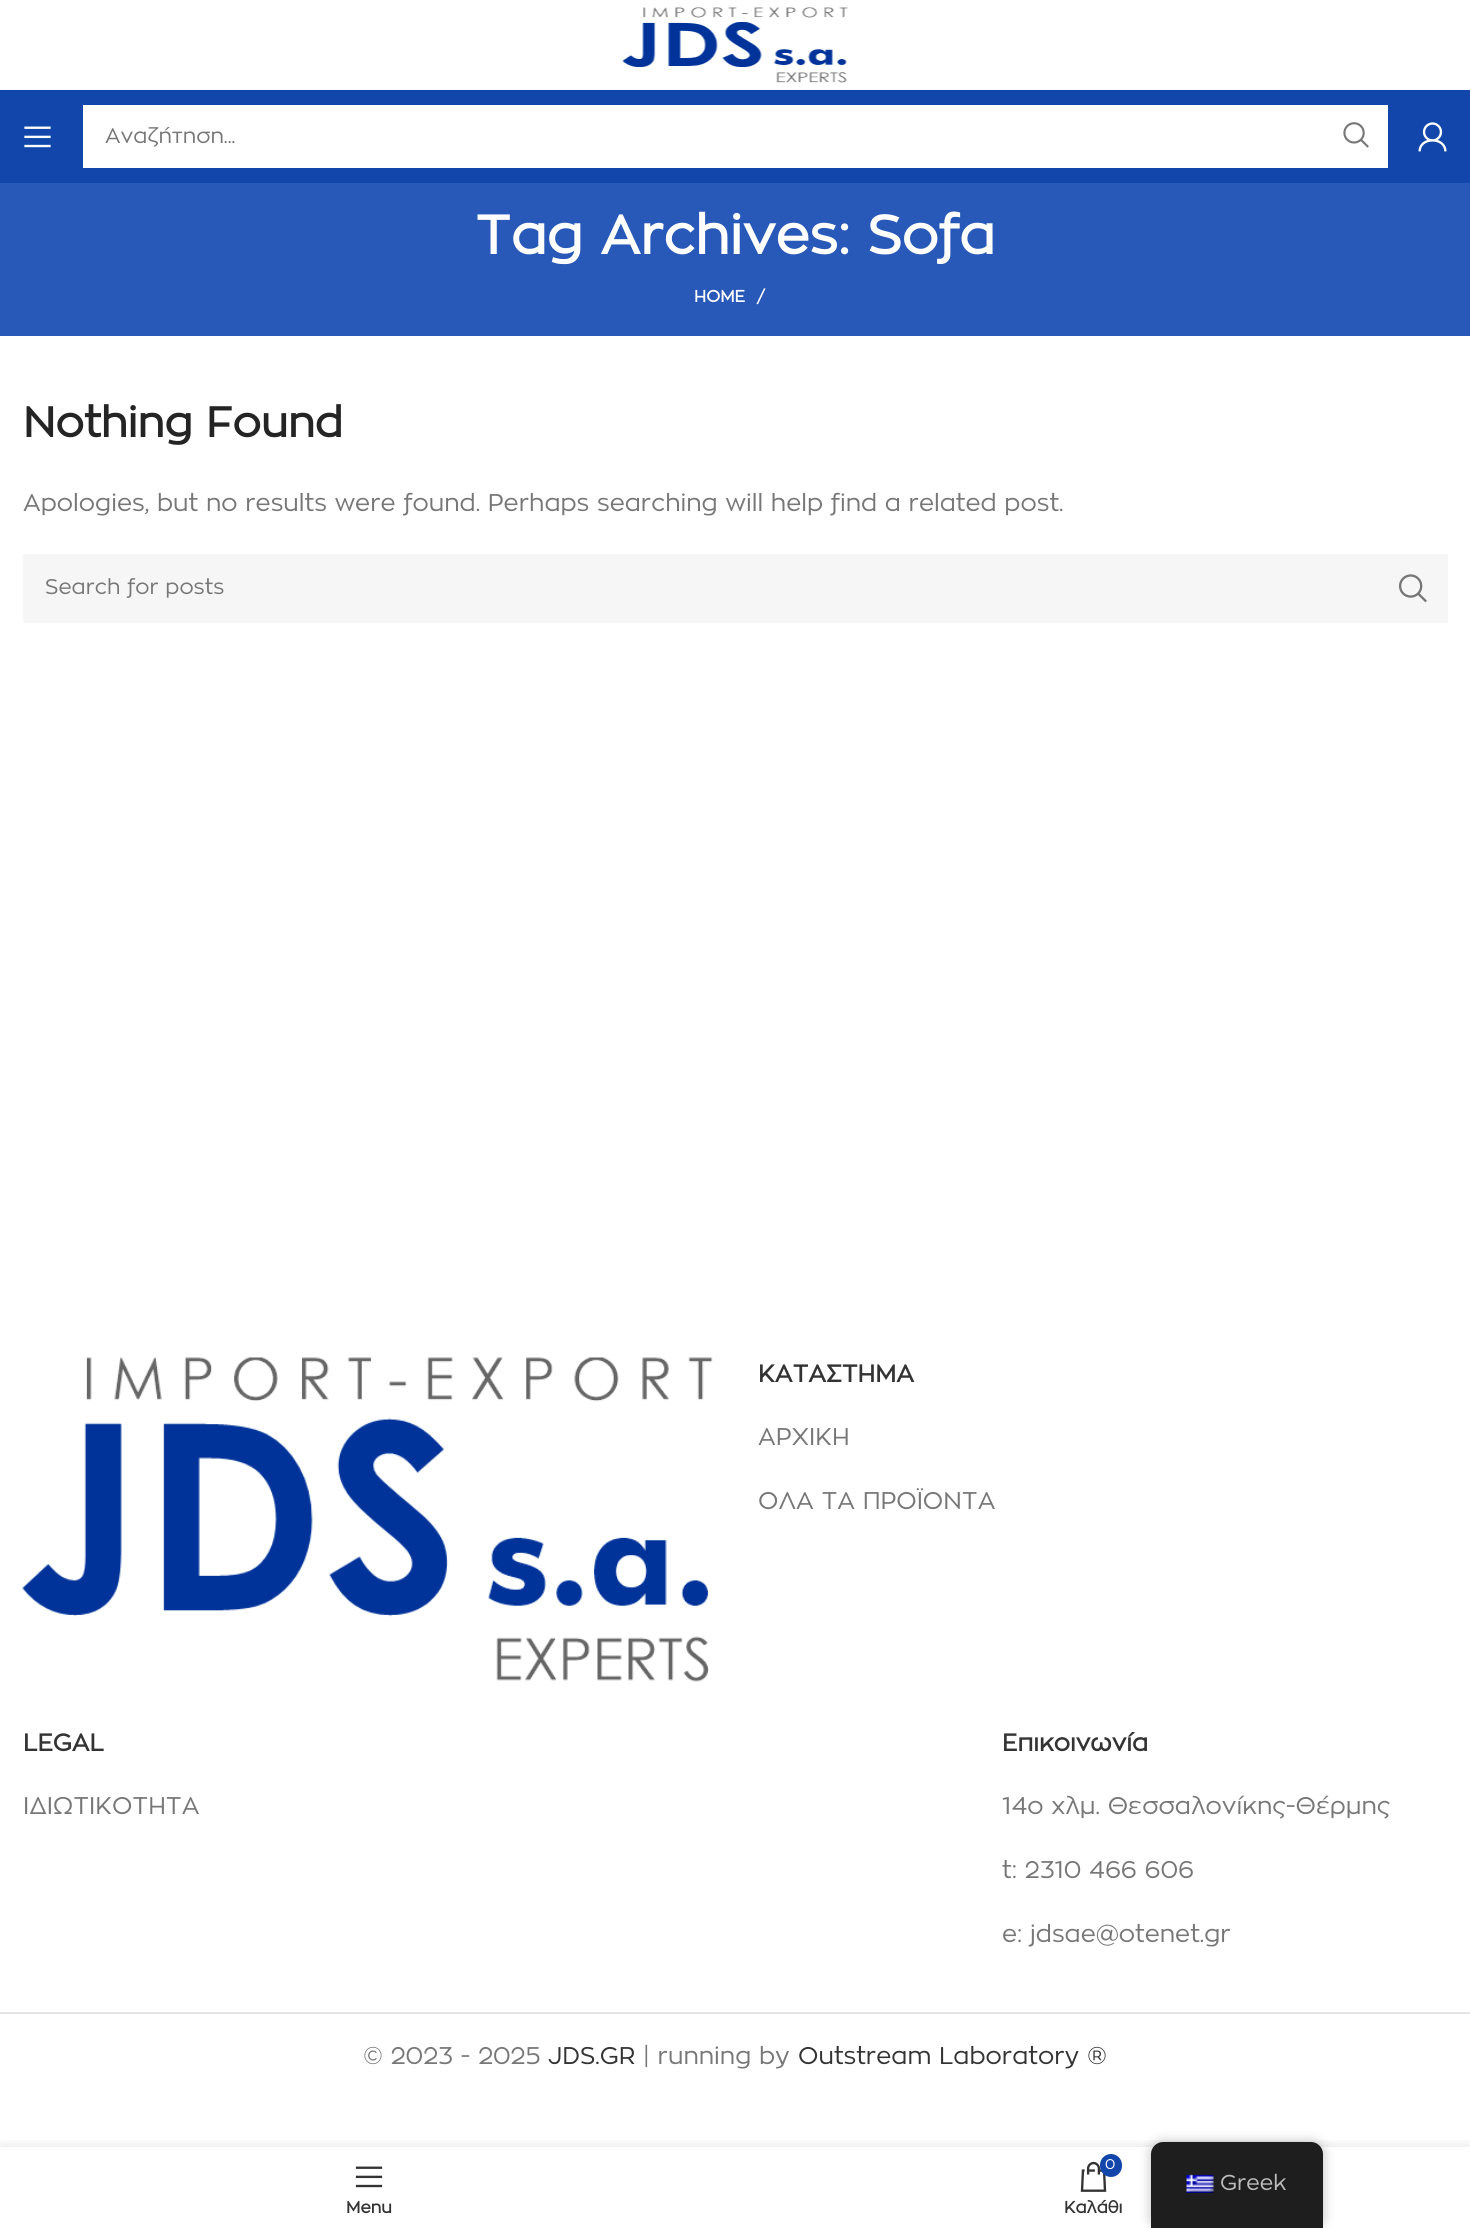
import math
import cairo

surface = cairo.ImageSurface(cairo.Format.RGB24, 1470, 2228)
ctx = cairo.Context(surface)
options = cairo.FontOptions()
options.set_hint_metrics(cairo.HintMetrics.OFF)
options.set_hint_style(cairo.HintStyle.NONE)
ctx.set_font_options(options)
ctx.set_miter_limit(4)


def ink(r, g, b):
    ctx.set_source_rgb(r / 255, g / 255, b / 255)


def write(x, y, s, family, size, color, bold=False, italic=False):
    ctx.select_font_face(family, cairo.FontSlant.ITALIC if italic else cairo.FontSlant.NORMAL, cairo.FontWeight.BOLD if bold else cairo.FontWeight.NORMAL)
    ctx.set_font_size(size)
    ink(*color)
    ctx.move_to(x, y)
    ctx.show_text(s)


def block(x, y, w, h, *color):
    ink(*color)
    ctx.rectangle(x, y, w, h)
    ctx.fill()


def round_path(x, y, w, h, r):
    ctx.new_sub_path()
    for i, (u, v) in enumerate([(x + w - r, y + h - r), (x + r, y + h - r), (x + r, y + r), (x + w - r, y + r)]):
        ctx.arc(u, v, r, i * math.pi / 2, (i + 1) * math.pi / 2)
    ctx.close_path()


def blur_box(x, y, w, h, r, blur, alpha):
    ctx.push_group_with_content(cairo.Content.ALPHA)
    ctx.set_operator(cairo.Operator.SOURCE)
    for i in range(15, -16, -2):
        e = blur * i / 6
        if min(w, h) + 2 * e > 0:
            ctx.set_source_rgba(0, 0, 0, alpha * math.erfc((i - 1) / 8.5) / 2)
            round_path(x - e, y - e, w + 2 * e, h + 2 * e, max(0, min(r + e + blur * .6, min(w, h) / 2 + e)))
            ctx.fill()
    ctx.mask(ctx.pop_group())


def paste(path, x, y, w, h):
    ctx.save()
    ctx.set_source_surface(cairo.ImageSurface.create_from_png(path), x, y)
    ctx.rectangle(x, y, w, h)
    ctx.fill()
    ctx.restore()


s1 = dict(family="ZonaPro", size=21, color=(119, 119, 119))
s2 = dict(family="ZonaPro", size=54, color=(255, 255, 255), bold=True)
s3 = dict(family="ZonaPro", size=16.5, color=(255, 255, 255), bold=True)
s4 = dict(family="ZonaPro", size=42, color=(36, 36, 36), bold=True)
s5 = dict(family="ZonaPro", size=24, color=(119, 119, 119))
s6 = dict(family="ZonaPro", size=24, color=(51, 51, 51), bold=True)
s7 = dict(family="ZonaPro", size=24, color=(51, 51, 51))
s8 = dict(family="ZonaPro", size=16.5, color=(51, 51, 51), bold=True)
s9 = dict(family="ZonaPro", size=14, color=(255, 255, 255))
s10 = dict(family="ZonaPro", size=21.5, color=(189, 189, 189))

ink(255, 255, 255)
ctx.paint()
paste("pic1.png", 622, 7, 226, 76)
block(0, 90, 1470, 93, 18, 70, 171)
paste("pic2.png", 24, 126, 27, 22)
block(83, 105, 1305, 63, 255, 255, 255)
write(105, 143, "Αναζήτηση...", **s1)
paste("pic3.png", 1343, 122, 26, 26)
paste("pic4.png", 1418, 122, 29, 30)
block(0, 183, 1470, 153, 40, 89, 184)
write(475, 254, "Tag Archives: Sofa", **s2)
write(694, 302, "HOME", **s3)
write(757, 302, "/", **s3)
write(23, 437, "Nothing Found", **s4)
write(23, 511, "Apologies, but no results were found. Perhaps searching will help find a related post.", **s5)
block(23, 554, 1425, 69, 246, 246, 246)
write(45, 594, "Search for posts", **s1)
paste("pic5.png", 1399, 574, 28, 29)
paste("pic6.png", 22, 1357, 691, 325)
write(758, 1382, "ΚΑΤΑΣΤΗΜΑ", **s6)
write(758, 1445, "ΑΡΧΙΚΗ", **s5)
write(758, 1509, "ΟΛΑ ΤΑ ΠΡΟΪΟΝΤΑ", **s5)
write(23, 1751, "LEGAL", **s6)
write(23, 1814, "ΙΔΙΩΤΙΚΟΤΗΤΑ", **s5)
write(1002, 1751, "Επικοινωνία", **s6)
write(1002, 1814, "14ο χλμ. Θεσσαλονίκης-Θέρμης", **s5)
write(1002, 1878, "t: 2310 466 606", **s5)
write(1002, 1942, "e: jdsae@otenet.gr", **s5)
block(0, 2012, 1470, 2, 228, 228, 228)
write(363, 2064, "© 2023 - 2025", **s5)
write(548, 2064, "JDS.GR", **s7)
write(643, 2064, "| running by", **s5)
write(798, 2064, "Outstream Laboratory ®", **s7)
ctx.save()
ctx.rectangle(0, 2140, 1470, 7)
ctx.clip()
ink(0, 0, 0)
blur_box(0, 2147, 1470, 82, 0, 7, 0.12)
ctx.restore()
paste("pic7.png", 355, 2166, 28, 22)
write(346, 2213, "Menu", **s8)
paste("pic8.png", 1080, 2161, 27, 31)
ink(18, 70, 171)
round_path(1100, 2154, 22, 23, 11)
ctx.fill()
write(1105, 2169, "0", **s9)
write(1064, 2213, "Καλάθι", **s8)
ink(0, 0, 0)
blur_box(1151, 2142, 172, 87, 12, 6, 0.25)
ink(30, 30, 30)
ctx.new_path()
ctx.move_to(1163, 2142)
ctx.line_to(1311, 2142)
ctx.curve_to(1317.5, 2142, 1323, 2147.5, 1323, 2154)
ctx.line_to(1323, 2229)
ctx.line_to(1151, 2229)
ctx.line_to(1151, 2154)
ctx.curve_to(1151, 2147.5, 1156.5, 2142, 1163, 2142)
ctx.close_path()
ctx.fill()
paste("pic9.png", 1186, 2174, 28, 19)
write(1220, 2190, "Greek", **s10)
surface.write_to_png("screenshot.png")
